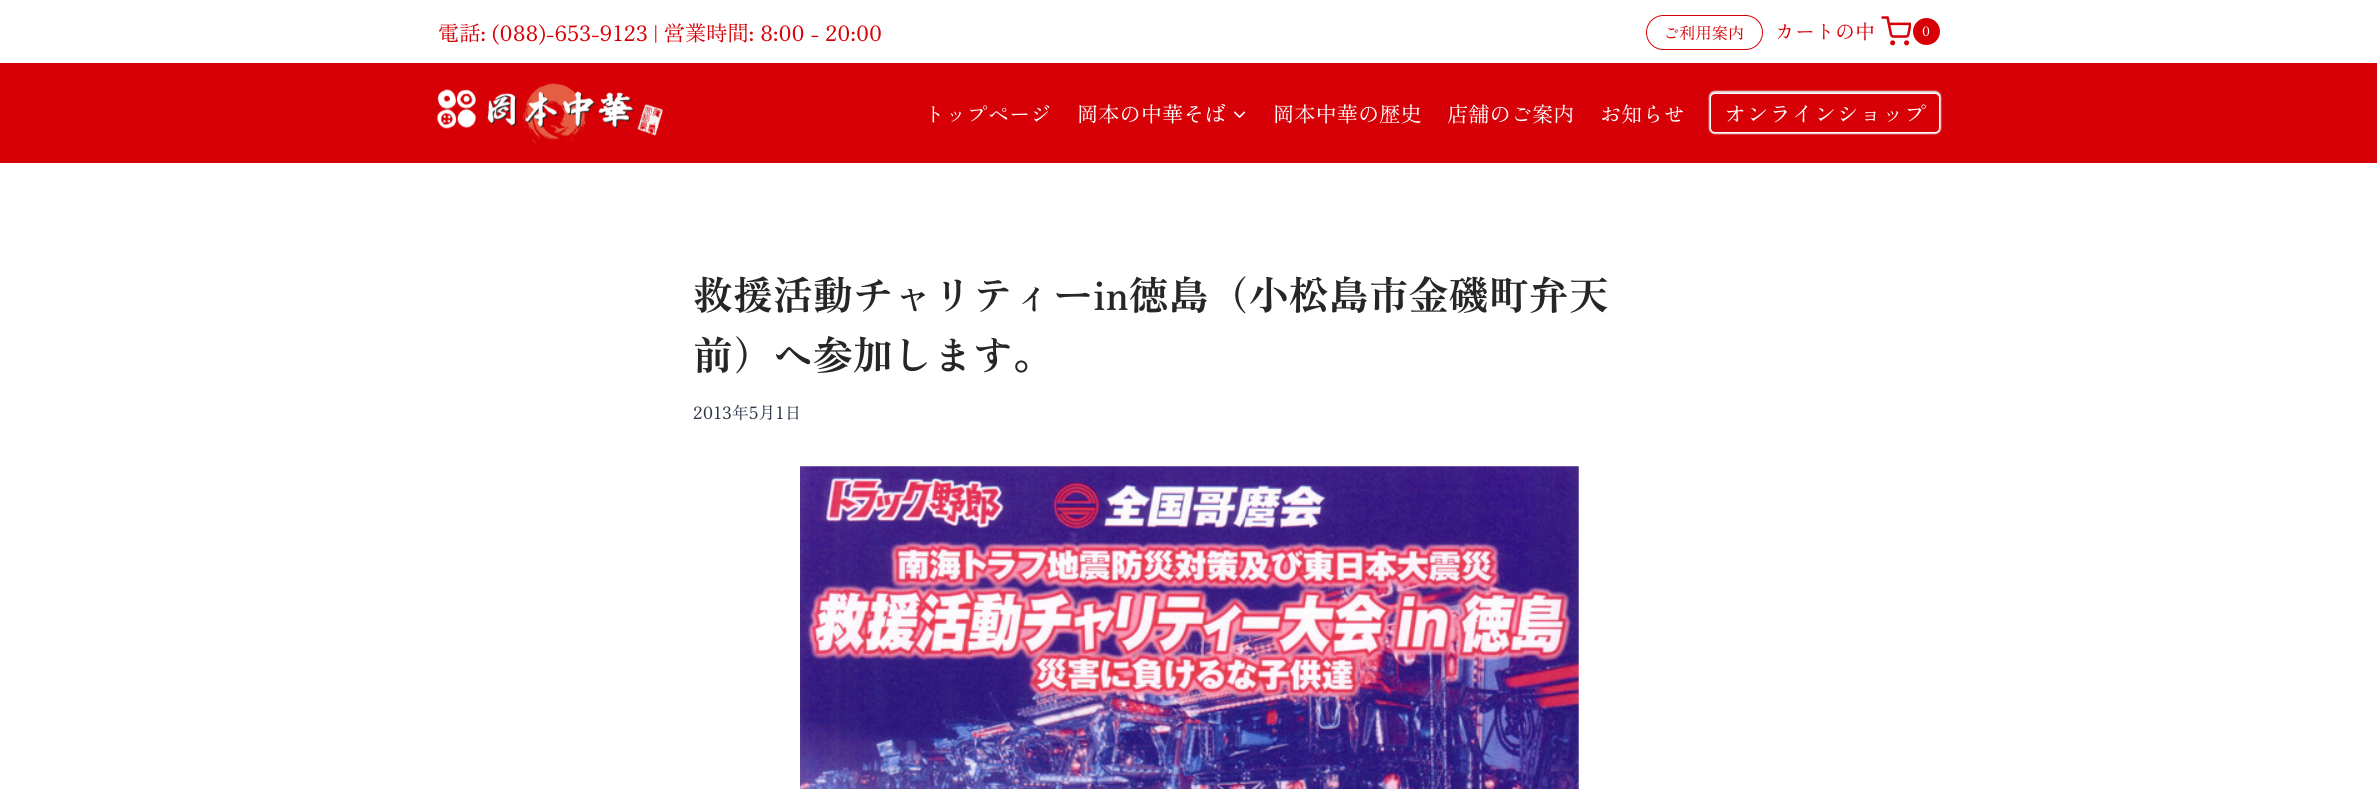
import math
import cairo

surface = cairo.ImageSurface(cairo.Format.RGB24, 2377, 789)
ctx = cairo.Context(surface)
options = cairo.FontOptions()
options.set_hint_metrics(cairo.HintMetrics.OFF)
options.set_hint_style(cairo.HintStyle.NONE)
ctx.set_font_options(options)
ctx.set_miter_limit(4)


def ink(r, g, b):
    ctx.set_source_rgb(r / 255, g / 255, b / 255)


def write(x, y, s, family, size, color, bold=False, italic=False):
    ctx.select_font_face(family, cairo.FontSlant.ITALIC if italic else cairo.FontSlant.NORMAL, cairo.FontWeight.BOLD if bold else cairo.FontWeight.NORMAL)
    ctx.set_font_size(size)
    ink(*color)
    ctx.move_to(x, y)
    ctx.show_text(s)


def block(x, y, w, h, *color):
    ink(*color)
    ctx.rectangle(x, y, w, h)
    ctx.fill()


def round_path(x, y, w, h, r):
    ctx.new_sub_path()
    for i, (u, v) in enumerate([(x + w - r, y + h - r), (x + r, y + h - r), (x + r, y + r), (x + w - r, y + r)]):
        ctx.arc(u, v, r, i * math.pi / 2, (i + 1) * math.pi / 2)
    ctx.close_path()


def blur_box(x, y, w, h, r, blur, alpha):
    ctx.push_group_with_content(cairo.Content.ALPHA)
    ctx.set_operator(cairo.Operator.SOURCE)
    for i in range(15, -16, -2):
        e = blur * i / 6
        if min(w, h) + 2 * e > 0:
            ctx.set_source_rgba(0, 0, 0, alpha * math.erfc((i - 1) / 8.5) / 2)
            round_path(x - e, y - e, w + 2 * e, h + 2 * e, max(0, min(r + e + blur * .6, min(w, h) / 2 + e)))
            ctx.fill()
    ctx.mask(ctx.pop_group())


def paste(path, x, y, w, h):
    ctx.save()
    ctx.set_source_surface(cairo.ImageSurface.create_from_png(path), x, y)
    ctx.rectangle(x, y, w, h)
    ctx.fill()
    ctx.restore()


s1 = dict(family="Zen Old Mincho", size=21.25, color=(214, 0, 6))
s2 = dict(family="Zen Old Mincho", size=16.25, color=(214, 0, 6))
s3 = dict(family="Zen Old Mincho", size=20, color=(214, 0, 6))
s4 = dict(family="Zen Old Mincho", size=13, color=(255, 255, 255))
s5 = dict(family="Zen Old Mincho", size=21.25, color=(255, 255, 255))
s6 = dict(family="Zen Old Mincho", size=22.5, color=(255, 255, 255))
s7 = dict(family="Zen Old Mincho", size=40, color=(38, 38, 38), bold=True)
s8 = dict(family="Zen Old Mincho", size=17, color=(45, 55, 72))

ink(255, 255, 255)
ctx.paint()
write(438, 41, "電話: (088)-653-9123 | 営業時間: 8:00 - 20:00", **s1)
round_path(1646.5, 15.5, 116, 34, 17)
ctx.set_line_width(1)
ctx.stroke()
write(1663, 39, "ご利用案内", **s2)
write(1775, 39, "カートの中", **s3)
paste("pic1.png", 1881, 16, 30, 30)
ctx.arc(1926.5, 31.5, 13.5, 0, 2 * math.pi)
ctx.fill()
write(1922, 36, "0", **s4)
block(0, 63, 2377, 100, 214, 0, 6)
paste("pic2.png", 437, 81, 226, 63)
write(924, 122, "トップページ", **s5)
write(1077, 122, "岡本の中華そば", **s5)
paste("pic3.png", 1234, 111, 12, 7)
write(1273, 122, "岡本中華の歴史", **s5)
write(1447, 122, "店舗のご案内", **s5)
write(1600, 122, "お知らせ", **s5)
ink(235, 225, 225)
blur_box(1709, 91, 232, 43, 6, 0.5, 1)
ink(214, 0, 6)
round_path(1710.5, 93.5, 229, 39, 4.5)
ctx.fill_preserve()
ink(255, 255, 255)
ctx.stroke()
write(1724, 122, "オンラインショップ", **s6)
write(693, 310, "救援活動チャリティーin徳島（小松島市金磯町弁天", **s7)
write(693, 370, "前）へ参加します。", **s7)
write(693, 419, "2013年5月1日", **s8)
paste("pic4.png", 800, 466, 779, 323)
surface.write_to_png("screenshot.png")
